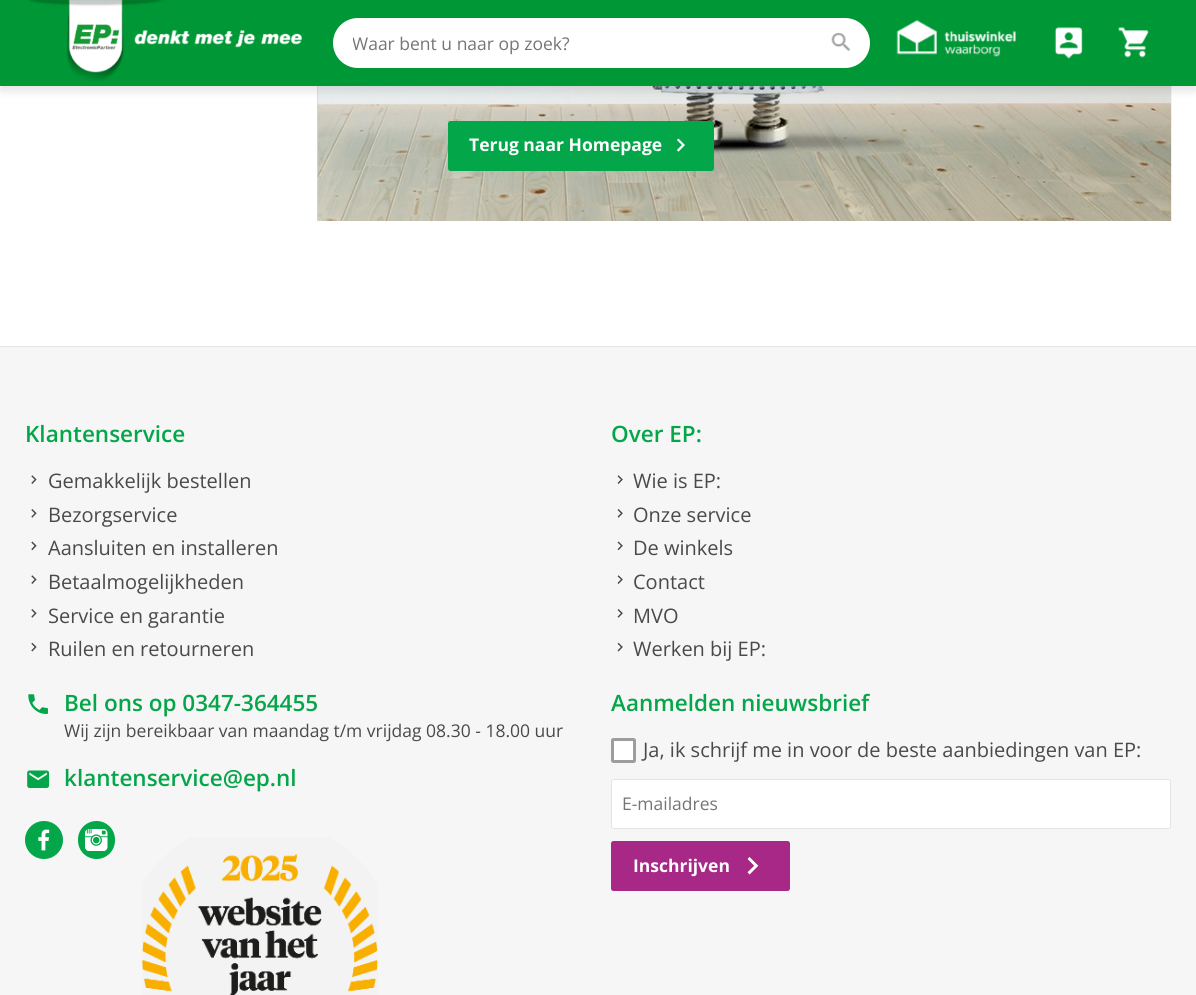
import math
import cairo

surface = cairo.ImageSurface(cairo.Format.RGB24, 1196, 995)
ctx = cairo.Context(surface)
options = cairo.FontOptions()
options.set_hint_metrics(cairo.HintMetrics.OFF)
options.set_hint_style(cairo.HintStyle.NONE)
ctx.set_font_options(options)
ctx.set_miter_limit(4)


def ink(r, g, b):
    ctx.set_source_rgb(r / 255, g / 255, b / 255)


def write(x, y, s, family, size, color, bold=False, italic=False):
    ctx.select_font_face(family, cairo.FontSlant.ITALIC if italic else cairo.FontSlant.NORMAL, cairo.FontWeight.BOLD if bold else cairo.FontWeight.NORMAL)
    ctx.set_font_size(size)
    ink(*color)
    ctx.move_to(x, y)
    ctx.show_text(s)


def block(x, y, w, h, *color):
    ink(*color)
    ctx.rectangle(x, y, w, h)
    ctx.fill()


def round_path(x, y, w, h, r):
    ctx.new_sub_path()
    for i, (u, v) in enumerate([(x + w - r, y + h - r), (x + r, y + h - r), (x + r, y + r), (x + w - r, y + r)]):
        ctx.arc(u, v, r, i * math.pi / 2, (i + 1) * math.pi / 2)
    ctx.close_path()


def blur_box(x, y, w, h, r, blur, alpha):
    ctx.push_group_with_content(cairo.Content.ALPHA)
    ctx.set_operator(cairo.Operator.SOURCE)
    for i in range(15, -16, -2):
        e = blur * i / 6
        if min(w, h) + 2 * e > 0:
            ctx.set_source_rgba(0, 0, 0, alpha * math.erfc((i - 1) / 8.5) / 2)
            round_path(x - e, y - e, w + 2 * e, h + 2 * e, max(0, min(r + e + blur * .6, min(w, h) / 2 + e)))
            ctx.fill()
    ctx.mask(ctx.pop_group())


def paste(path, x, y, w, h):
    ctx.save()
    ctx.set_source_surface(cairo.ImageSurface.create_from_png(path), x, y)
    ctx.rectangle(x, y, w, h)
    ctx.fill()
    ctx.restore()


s1 = dict(family="Open Sans", size=17.5, color=(117, 117, 117))
s2 = dict(family="Open Sans", size=17.5, color=(255, 255, 255), bold=True)
s3 = dict(family="Open Sans SemiBold", size=22.5, color=(4, 166, 74))
s4 = dict(family="Open Sans", size=20, color=(74, 74, 74))
s5 = dict(family="Open Sans", size=17.5, color=(74, 74, 74))

ink(255, 255, 255)
ctx.paint()
paste("pic6.png", 317, 86, 855, 135)
paste("pic7.png", 317, 86, 855, 135)
ink(74, 74, 74)
blur_box(0, 5, 1196, 86, 0, 4.5, 0.15)
block(0, 0, 1196, 86, 0, 151, 54)
paste("pic1.png", 28, 0, 275, 81)
ink(255, 255, 255)
round_path(333, 18, 537, 50, 25)
ctx.fill()
ctx.save()
ctx.rectangle(353, 31, 472, 24)
ctx.clip()
write(352, 50, "Waar bent u naar op zoek?", **s1)
ctx.restore()
paste("pic2.png", 831, 32, 20, 20)
paste("pic3.png", 896, 20, 120, 37)
paste("pic4.png", 1054, 27, 29, 32)
paste("pic5.png", 1118, 27, 31, 31)
ink(4, 166, 74)
round_path(448, 121, 266, 50, 2.5)
ctx.fill()
write(469, 151, "Terug naar Homepage", **s2)
paste("pic8.png", 677, 138, 8, 14)
block(0, 347, 1196, 648, 246, 246, 246)
block(0, 346, 1196, 1, 228, 228, 228)
write(25, 442, "Klantenservice", **s3)
paste("pic9.png", 31, 475, 6, 9)
write(48, 488, "Gemakkelijk bestellen", **s4)
paste("pic10.png", 31, 509, 6, 9)
write(48, 522, "Bezorgservice", **s4)
paste("pic11.png", 31, 541, 6, 10)
write(48, 555, "Aansluiten en installeren", **s4)
paste("pic9.png", 31, 575, 6, 9)
write(48, 589, "Betaalmogelijkheden", **s4)
paste("pic10.png", 31, 609, 6, 9)
write(48, 623, "Service en garantie", **s4)
paste("pic12.png", 31, 642, 6, 10)
write(48, 656, "Ruilen en retourneren", **s4)
write(611, 442, "Over EP:", **s3)
paste("pic13.png", 617, 475, 6, 9)
write(633, 488, "Wie is EP:", **s4)
paste("pic14.png", 617, 509, 6, 9)
write(633, 522, "Onze service", **s4)
paste("pic15.png", 617, 541, 6, 10)
write(633, 555, "De winkels", **s4)
paste("pic13.png", 617, 575, 6, 9)
write(633, 589, "Contact", **s4)
paste("pic14.png", 617, 609, 6, 9)
write(633, 623, "MVO", **s4)
paste("pic16.png", 617, 642, 6, 10)
write(633, 656, "Werken bij EP:", **s4)
paste("pic17.png", 28, 694, 20, 20)
write(64, 711, "Bel ons op 0347-364455", **s3)
write(64, 737, "Wij zijn bereikbaar van maandag t/m vrijdag 08.30 - 18.00 uur", **s5)
paste("pic18.png", 27, 770, 23, 18)
write(64, 786, "klantenservice@ep.nl", **s3)
ctx.new_path()
ctx.arc(44, 840, 19, 0, 2 * math.pi)
ctx.fill()
paste("pic19.png", 38, 829, 12, 22)
round_path(78, 821, 37, 38, 18.5)
ctx.fill()
paste("pic20.png", 85, 829, 23, 22)
paste("pic21.png", 142, 837, 236, 158)
write(611, 711, "Aanmelden nieuwsbrief", **s3)
ink(255, 255, 255)
round_path(612.5, 739.5, 22, 22, 1)
ctx.fill_preserve()
ink(157, 157, 156)
ctx.set_line_width(3)
ctx.stroke()
write(643, 757, "Ja, ik schrijf me in voor de beste aanbiedingen van EP:", **s4)
ink(255, 255, 255)
round_path(611.5, 779.5, 559, 49, 2)
ctx.fill_preserve()
ink(228, 228, 228)
ctx.set_line_width(1)
ctx.stroke()
write(622, 810, "E-mailadres", **s1)
ink(167, 40, 134)
round_path(611, 841, 179, 50, 2.5)
ctx.fill()
write(633, 872, "Inschrijven", **s2)
paste("pic22.png", 747, 857, 12, 18)
surface.write_to_png("screenshot.png")
